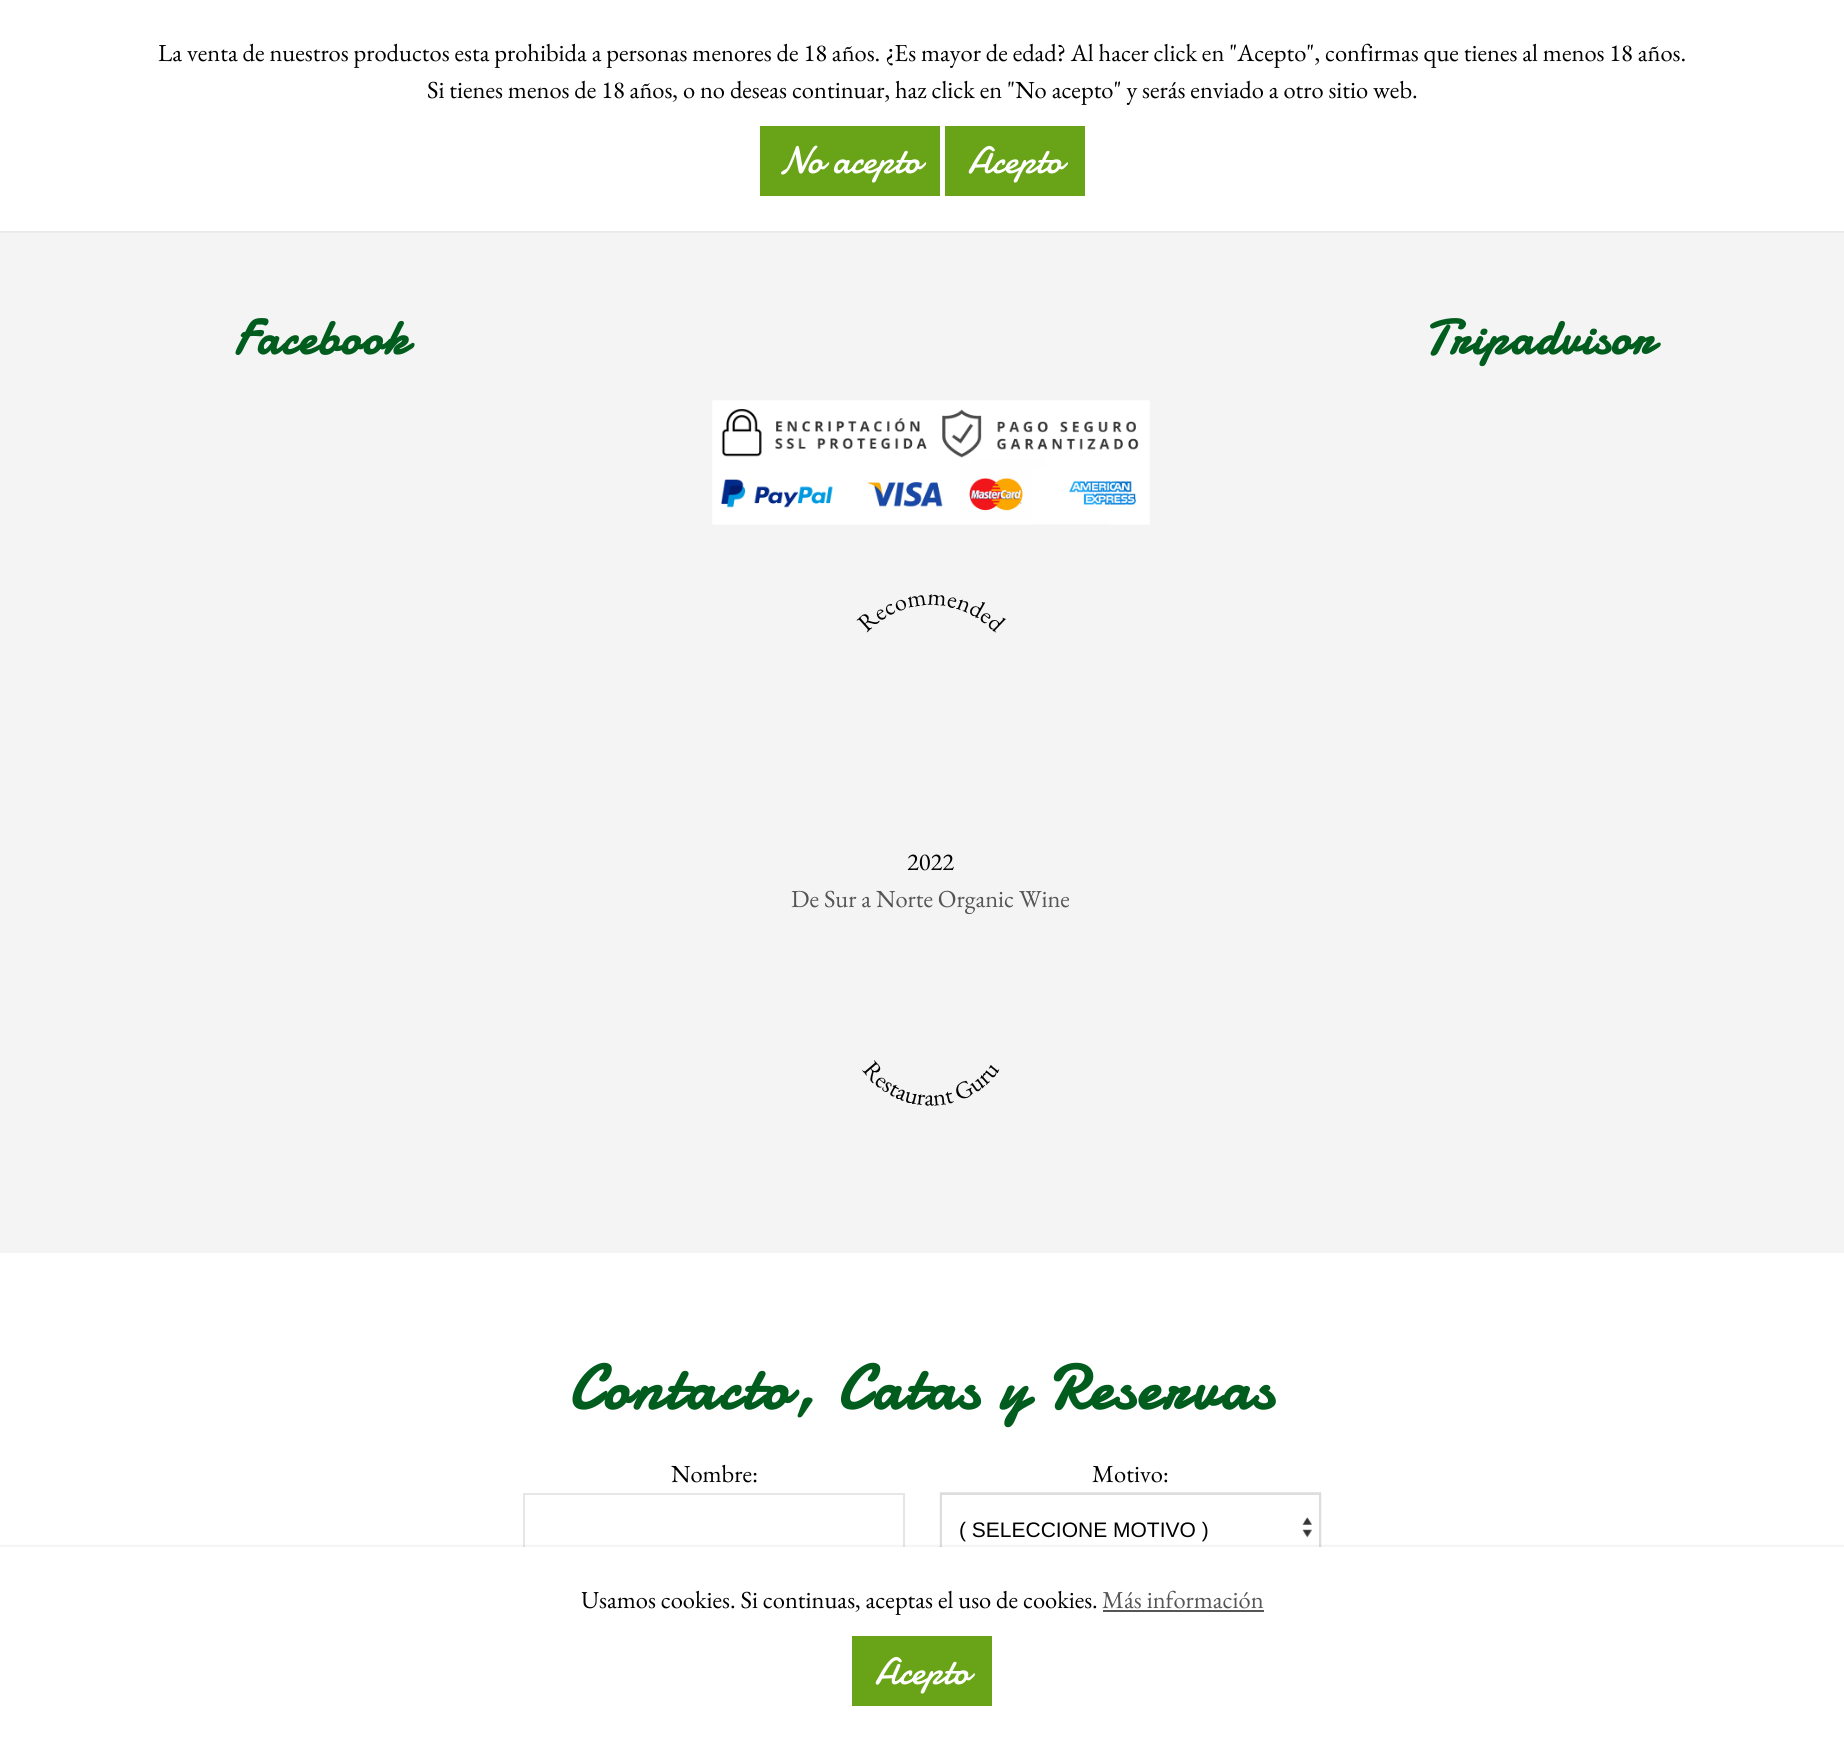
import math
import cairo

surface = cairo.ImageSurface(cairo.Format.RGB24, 1844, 1740)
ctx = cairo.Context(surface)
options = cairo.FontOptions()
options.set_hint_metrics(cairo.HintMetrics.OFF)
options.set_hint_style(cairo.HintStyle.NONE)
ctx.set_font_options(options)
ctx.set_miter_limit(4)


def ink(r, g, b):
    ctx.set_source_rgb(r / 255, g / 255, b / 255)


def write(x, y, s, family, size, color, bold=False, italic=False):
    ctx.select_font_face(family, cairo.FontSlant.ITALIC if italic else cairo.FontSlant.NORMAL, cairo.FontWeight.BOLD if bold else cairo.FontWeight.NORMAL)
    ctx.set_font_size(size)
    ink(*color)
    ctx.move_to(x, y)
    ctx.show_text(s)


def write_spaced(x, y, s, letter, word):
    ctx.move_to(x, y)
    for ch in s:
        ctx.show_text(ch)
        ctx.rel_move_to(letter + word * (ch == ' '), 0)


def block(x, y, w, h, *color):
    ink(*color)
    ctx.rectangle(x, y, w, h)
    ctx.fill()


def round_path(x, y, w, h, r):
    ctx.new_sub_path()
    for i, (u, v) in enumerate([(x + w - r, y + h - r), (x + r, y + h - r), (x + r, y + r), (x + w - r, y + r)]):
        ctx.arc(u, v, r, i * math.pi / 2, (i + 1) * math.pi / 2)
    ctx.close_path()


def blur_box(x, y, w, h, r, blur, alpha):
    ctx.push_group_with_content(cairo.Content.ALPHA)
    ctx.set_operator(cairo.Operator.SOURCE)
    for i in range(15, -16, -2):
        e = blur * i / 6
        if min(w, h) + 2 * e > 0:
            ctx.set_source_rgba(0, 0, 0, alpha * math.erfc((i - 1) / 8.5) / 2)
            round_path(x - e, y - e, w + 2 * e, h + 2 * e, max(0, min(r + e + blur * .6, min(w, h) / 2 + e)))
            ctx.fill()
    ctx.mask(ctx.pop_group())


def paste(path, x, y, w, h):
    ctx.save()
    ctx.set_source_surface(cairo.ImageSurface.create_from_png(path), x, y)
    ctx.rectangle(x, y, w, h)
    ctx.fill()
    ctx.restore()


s1 = dict(family="EB Garamond", size=24.5, color=(0, 0, 0))
s2 = dict(family="Damion", size=38.5, color=(255, 255, 255))
s3 = dict(family="EB Garamond", size=24.5, color=(85, 85, 85))
s4 = dict(family="Liberation Sans", size=21, color=(0, 0, 0))

ink(255, 255, 255)
ctx.paint()
block(0, 231, 1844, 1022, 244, 244, 244)
ctx.save()
ctx.rectangle(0, 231, 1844, 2)
ctx.clip()
ink(0, 0, 0)
blur_box(-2, -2, 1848, 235, 0, 1, 0.05)
ctx.restore()
write(158, 61, "La venta de nuestros productos esta prohibida a personas menores de 18 años. ¿Es mayor de edad? Al hacer click en \"Acepto\", confirmas que tienes al menos 18 años.", **s1)
write(427, 98, "Si tienes menos de 18 años, o no deseas continuar, haz click en \"No acepto\" y serás enviado a otro sitio web.", **s1)
block(760, 126, 180, 70, 105, 164, 24)
write(779, 173, "No acepto", **s2)
block(945, 126, 140, 70, 105, 164, 24)
write(968, 173, "Acepto", **s2)
ctx.rectangle(524, 1494, 380, 68)
ink(230, 230, 230)
ctx.stroke()
paste("pic4.png", 939, 1492, 383, 55)
ctx.rectangle(941, 1494, 379, 68)
ink(221, 221, 221)
ctx.stroke()
ink(0, 0, 0)
blur_box(-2, 1545, 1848, 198, 0, 1, 0.05)
block(0, 1547, 1844, 193, 255, 255, 255)
write(581, 1608, "Usamos cookies. Si continuas, aceptas el uso de cookies.", **s1)
write(1102, 1608, "Más información", **s3)
block(1103, 1610, 161, 2, 85, 85, 85)
block(852, 1636, 140, 70, 105, 164, 24)
write(875, 1684, "Acepto", **s2)
ctx.select_font_face("Damion", cairo.FontSlant.NORMAL, cairo.FontWeight.BOLD)
ctx.set_font_size(49)
ink(0, 93, 30)
write_spaced(234, 354, "Facebook", 1.75, 0)
write_spaced(1424, 354, "Tripadvisor", 1.75, 0)
paste("pic1.png", 712, 400, 438, 125)
paste("pic2.png", 856, 594, 150, 39)
write(907, 870, "2022", **s1)
write(791, 907, "De Sur a Norte Organic Wine", **s3)
paste("pic3.png", 862, 1060, 138, 46)
ctx.select_font_face("Damion", cairo.FontSlant.NORMAL, cairo.FontWeight.BOLD)
ctx.set_font_size(63)
ink(0, 93, 30)
write_spaced(568, 1409, "Contacto, Catas y Reservas", 3.5, 0)
write(671, 1482, "Nombre:", **s1)
write(1092, 1482, "Motivo:", **s1)
write(959, 1537, "( SELECCIONE MOTIVO )", **s4)
surface.write_to_png("screenshot.png")
